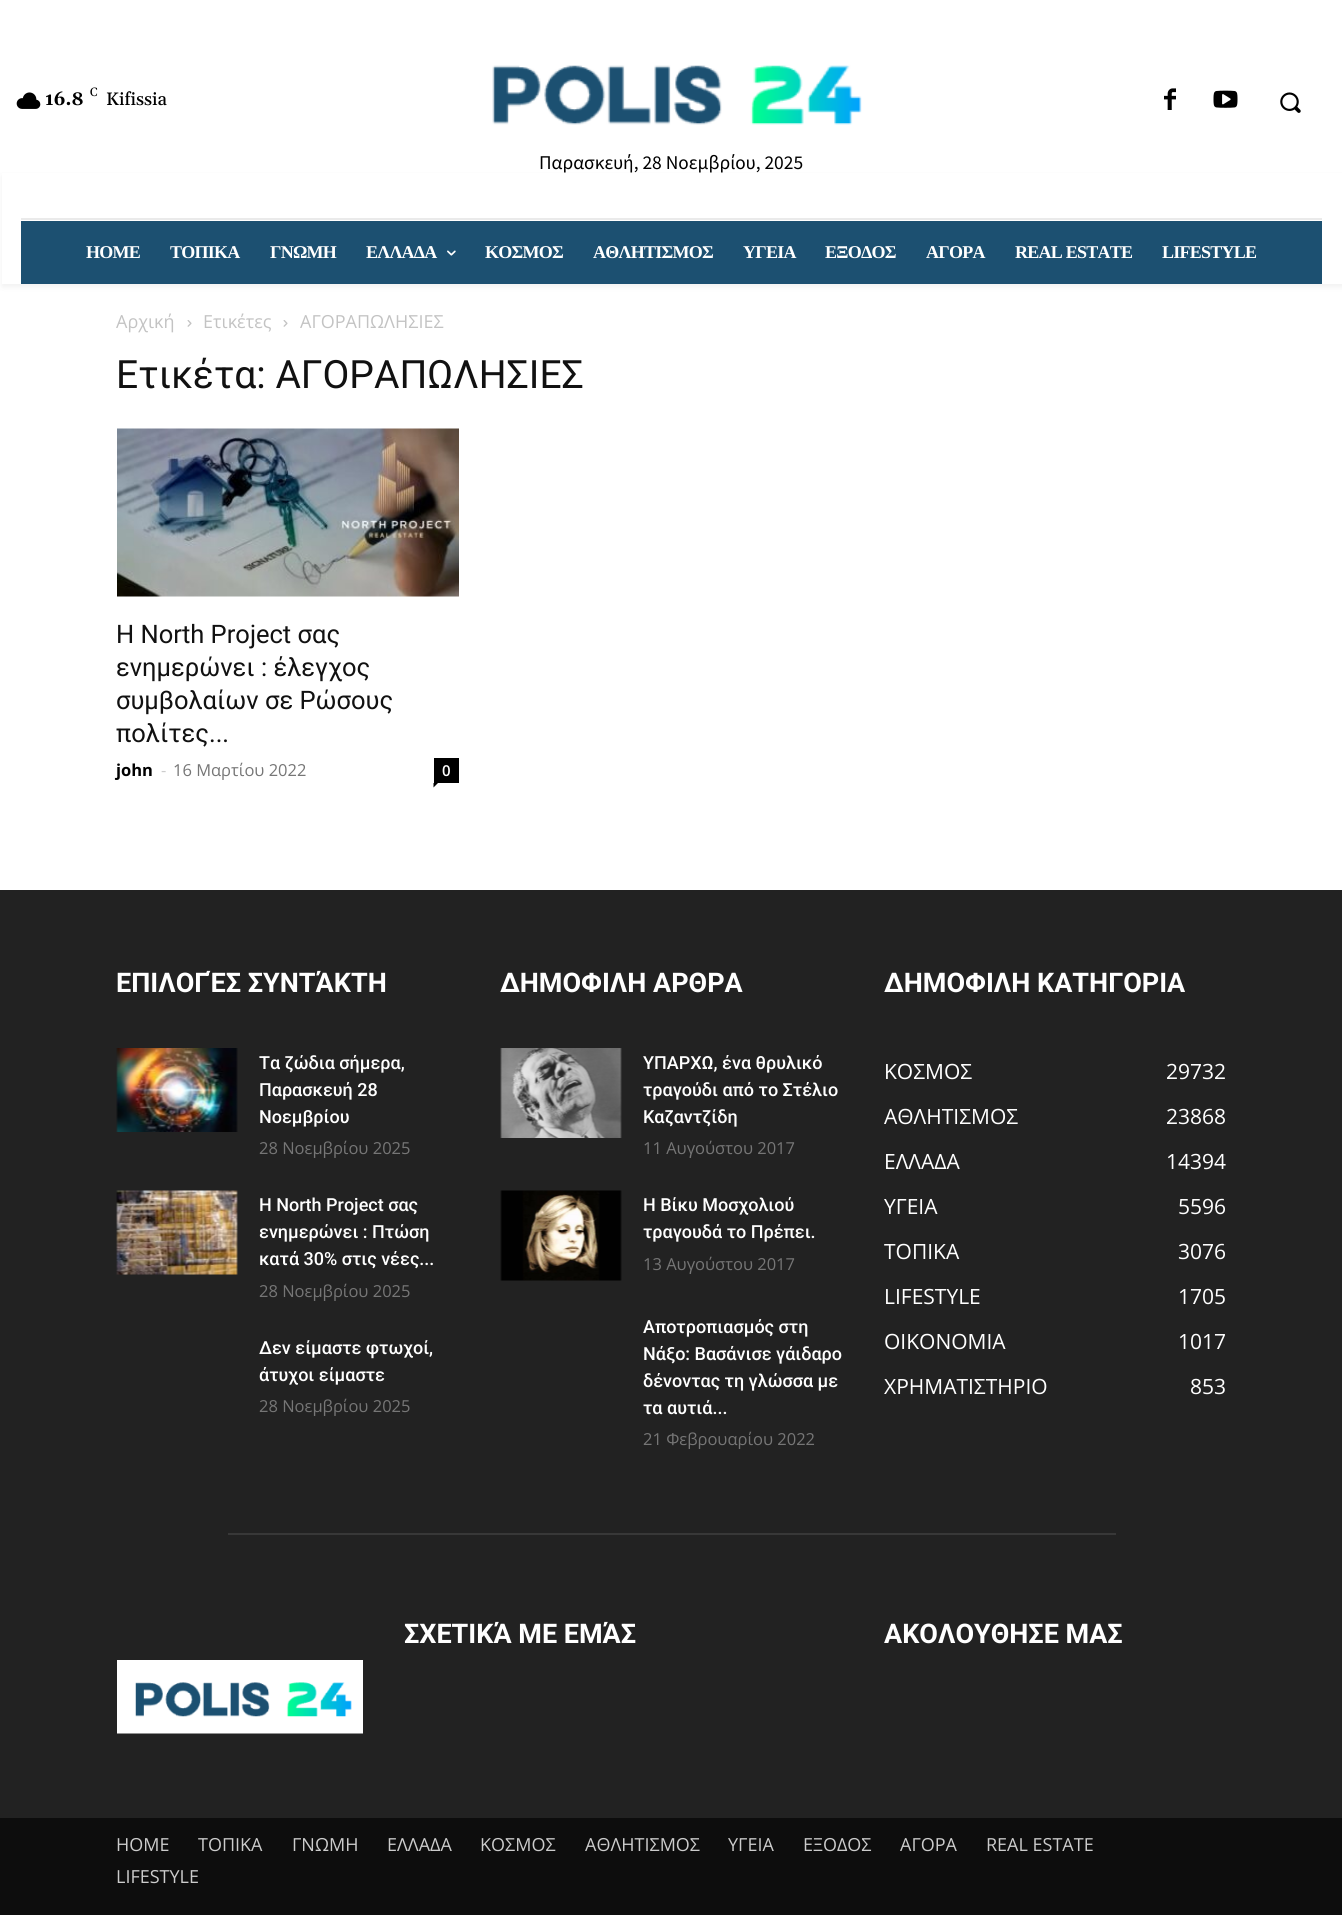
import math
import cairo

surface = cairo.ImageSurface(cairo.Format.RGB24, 1342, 1915)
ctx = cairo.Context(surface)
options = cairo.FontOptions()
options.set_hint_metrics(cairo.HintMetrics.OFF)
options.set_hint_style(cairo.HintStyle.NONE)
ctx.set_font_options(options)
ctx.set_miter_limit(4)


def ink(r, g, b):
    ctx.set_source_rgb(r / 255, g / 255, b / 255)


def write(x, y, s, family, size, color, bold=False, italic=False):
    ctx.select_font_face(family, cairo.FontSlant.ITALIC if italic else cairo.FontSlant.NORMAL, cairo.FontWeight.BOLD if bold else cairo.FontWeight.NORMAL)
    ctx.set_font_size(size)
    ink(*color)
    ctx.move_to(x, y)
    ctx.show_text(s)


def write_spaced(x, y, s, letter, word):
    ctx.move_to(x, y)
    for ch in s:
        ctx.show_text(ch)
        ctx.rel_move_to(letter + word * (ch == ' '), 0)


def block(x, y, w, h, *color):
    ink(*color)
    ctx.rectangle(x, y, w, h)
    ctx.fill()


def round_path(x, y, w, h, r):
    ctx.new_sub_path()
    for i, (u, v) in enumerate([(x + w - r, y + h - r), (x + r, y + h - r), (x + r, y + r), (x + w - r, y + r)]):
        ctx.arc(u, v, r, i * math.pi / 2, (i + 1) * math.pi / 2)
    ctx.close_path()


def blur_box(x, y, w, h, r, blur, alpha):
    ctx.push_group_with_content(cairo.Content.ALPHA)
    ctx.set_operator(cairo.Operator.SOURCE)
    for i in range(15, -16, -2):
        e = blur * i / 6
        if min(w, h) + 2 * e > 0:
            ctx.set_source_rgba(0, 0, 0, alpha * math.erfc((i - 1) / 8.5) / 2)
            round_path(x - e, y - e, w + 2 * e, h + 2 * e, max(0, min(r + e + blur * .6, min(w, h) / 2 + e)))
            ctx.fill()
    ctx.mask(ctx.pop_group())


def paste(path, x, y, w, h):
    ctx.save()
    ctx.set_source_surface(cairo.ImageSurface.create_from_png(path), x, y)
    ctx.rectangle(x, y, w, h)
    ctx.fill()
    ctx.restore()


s1 = dict(family="Gelasio", size=18, color=(0, 0, 0), bold=True)
s2 = dict(family="Gelasio", size=12, color=(0, 0, 0))
s3 = dict(family="Gelasio Medium", size=18, color=(0, 0, 0))
s4 = dict(family="Source Sans Pro", size=19.5, color=(0, 0, 0))
s5 = dict(family="Open Sans", size=18, color=(195, 195, 195))
s6 = dict(family="Roboto", size=39, color=(17, 17, 17))
s7 = dict(family="Roboto", size=25.5, color=(17, 17, 17))
s8 = dict(family="Open Sans", size=16.5, color=(0, 0, 0), bold=True)
s9 = dict(family="Open Sans", size=16.5, color=(204, 204, 204))
s10 = dict(family="Open Sans", size=16.5, color=(118, 118, 118))
s11 = dict(family="Open Sans SemiBold", size=15, color=(255, 255, 255))
s12 = dict(family="Roboto", size=27, color=(255, 255, 255), bold=True)
s13 = dict(family="Roboto Medium", size=18, color=(255, 255, 255))
s14 = dict(family="Open Sans", size=21, color=(255, 255, 255))
s15 = dict(family="Open Sans", size=18, color=(204, 204, 204))

ink(255, 255, 255)
ctx.paint()
paste("pic1.png", 16, 92, 25, 17)
write(45, 105, "16.8", **s1)
write(90, 96, "C", **s2)
write(106, 105, "Kifissia", **s3)
paste("pic2.png", 1164, 88, 12, 22)
paste("pic3.png", 1213, 90, 25, 18)
paste("pic4.png", 1280, 92, 21, 21)
paste("pic5.png", 492, 65, 370, 60)
write(539, 169, "Παρασκευή, 28 Νοεμβρίου, 2025", **s4)
block(21, 218, 1301, 2, 234, 234, 234)
ctx.save()
ctx.set_fill_rule(cairo.FillRule.EVEN_ODD)
ctx.new_path()
ctx.move_to(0, 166)
ctx.line_to(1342, 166)
ctx.line_to(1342, 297)
ctx.line_to(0, 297)
ctx.close_path()
ctx.move_to(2, 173)
ctx.line_to(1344, 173)
ctx.line_to(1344, 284)
ctx.line_to(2, 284)
ctx.close_path()
ctx.clip()
ink(0, 0, 0)
blur_box(2, 176, 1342, 111, 0, 3, 0.06)
ctx.restore()
block(21, 221, 1301, 63, 28, 80, 113)
ctx.select_font_face("Liberation Serif", cairo.FontSlant.NORMAL, cairo.FontWeight.BOLD)
ctx.set_font_size(18)
ink(255, 255, 255)
write_spaced(86, 258, "HOME", -0.75, 0)
write_spaced(170, 258, "ΤΟΠΙΚΑ", -0.75, 0)
write_spaced(270, 258, "ΓΝΩΜΗ", -0.75, 0)
write_spaced(366, 258, "ΕΛΛΑΔΑ", -0.75, 0)
paste("pic6.png", 447, 250, 9, 6)
write_spaced(485, 258, "ΚΟΣΜΟΣ", -0.75, 0)
write_spaced(593, 258, "ΑΘΛΗΤΙΣΜΟΣ", -0.75, 0)
write_spaced(743, 258, "ΥΓΕΙΑ", -0.75, 0)
write_spaced(825, 258, "ΕΞΟΔΟΣ", -0.75, 0)
write_spaced(926, 258, "ΑΓΟΡΑ", -0.75, 0)
write_spaced(1015, 258, "REAL ESTATE", -0.75, 0)
write_spaced(1162, 258, "LIFESTYLE", -0.75, 0)
write(116, 328, "Αρχική", **s5)
paste("pic7.png", 187, 320, 5, 7)
write(203, 328, "Ετικέτες", **s5)
paste("pic7.png", 283, 320, 5, 7)
write(300, 328, "ΑΓΟΡΑΠΩΛΗΣΙΕΣ", **s5)
write(116, 388, "Ετικέτα: ΑΓΟΡΑΠΩΛΗΣΙΕΣ", **s6)
paste("pic8.png", 117, 428, 342, 169)
write(116, 643, "Η North Project σας", **s7)
write(116, 676, "ενημερώνει : έλεγχος", **s7)
write(116, 709, "συμβολαίων σε Ρώσους", **s7)
write(116, 742, "πολίτες...", **s7)
write(116, 776, "john", **s8)
write(161, 776, "-", **s9)
write(173, 776, "16 Μαρτίου 2022", **s10)
block(434, 758, 25, 25, 0, 0, 0)
write(442, 776, "0", **s11)
ink(0, 0, 0)
ctx.new_path()
ctx.move_to(433.5, 783)
ctx.line_to(438, 783)
ctx.line_to(433.5, 787.5)
ctx.close_path()
ctx.fill()
block(0, 890, 1342, 928, 34, 34, 34)
write(116, 992, "ΕΠΙΛΟΓΈΣ ΣΥΝΤΆΚΤΗ", **s12)
paste("pic9.png", 116, 1048, 122, 84)
write(259, 1069, "Τα ζώδια σήμερα,", **s13)
write(259, 1096, "Παρασκευή 28", **s13)
write(259, 1123, "Νοεμβρίου", **s13)
write(259, 1154, "28 Νοεμβρίου 2025", **s10)
paste("pic10.png", 116, 1190, 122, 85)
write(259, 1211, "H North Project σας", **s13)
write(259, 1238, "ενημερώνει : Πτώση", **s13)
write(259, 1265, "κατά 30% στις νέες...", **s13)
write(259, 1297, "28 Νοεμβρίου 2025", **s10)
write(259, 1354, "Δεν είμαστε φτωχοί,", **s13)
write(259, 1381, "άτυχοι είμαστε", **s13)
write(259, 1412, "28 Νοεμβρίου 2025", **s10)
write(500, 992, "ΔΗΜΟΦΙΛΗ ΑΡΘΡΑ", **s12)
paste("pic11.png", 500, 1048, 122, 90)
write(643, 1069, "ΥΠΑΡΧΩ, ένα θρυλικό", **s13)
write(643, 1096, "τραγούδι από το Στέλιο", **s13)
write(643, 1123, "Καζαντζίδη", **s13)
write(643, 1154, "11 Αυγούστου 2017", **s10)
paste("pic12.png", 500, 1190, 122, 91)
write(643, 1211, "Η Βίκυ Μοσχολιού", **s13)
write(643, 1238, "τραγουδά το Πρέπει.", **s13)
write(643, 1270, "13 Αυγούστου 2017", **s10)
write(643, 1333, "Αποτροπιασμός στη", **s13)
write(643, 1360, "Νάξο: Βασάνισε γάιδαρο", **s13)
write(643, 1387, "δένοντας τη γλώσσα με", **s13)
write(643, 1414, "τα αυτιά...", **s13)
write(643, 1445, "21 Φεβρουαρίου 2022", **s10)
write(884, 992, "ΔΗΜΟΦΙΛΗ ΚΑΤΗΓΟΡΙΑ", **s12)
write(884, 1079, "ΚΟΣΜΟΣ", **s14)
write(1166, 1079, "29732", **s14)
write(884, 1124, "ΑΘΛΗΤΙΣΜΟΣ", **s14)
write(1166, 1124, "23868", **s14)
write(884, 1169, "ΕΛΛΑΔΑ", **s14)
write(1166, 1169, "14394", **s14)
write(884, 1214, "ΥΓΕΙΑ", **s14)
write(1178, 1214, "5596", **s14)
write(884, 1259, "ΤΟΠΙΚΑ", **s14)
write(1178, 1259, "3076", **s14)
write(884, 1304, "LIFESTYLE", **s14)
write(1178, 1304, "1705", **s14)
write(884, 1349, "ΟΙΚΟΝΟΜΙΑ", **s14)
write(1178, 1349, "1017", **s14)
write(884, 1394, "ΧΡΗΜΑΤΙΣΤΗΡΙΟ", **s14)
write(1190, 1394, "853", **s14)
block(228, 1533, 888, 2, 56, 56, 56)
write(404, 1643, "ΣΧΕΤΙΚΆ ΜΕ ΕΜΆΣ", **s12)
write(884, 1643, "ΑΚΟΛΟΥΘΗΣΕ ΜΑΣ", **s12)
paste("pic13.png", 117, 1660, 246, 74)
block(0, 1818, 1342, 97, 13, 13, 13)
write(116, 1851, "HOME", **s15)
write(198, 1851, "ΤΟΠΙΚΑ", **s15)
write(292, 1851, "ΓΝΩΜΗ", **s15)
write(387, 1851, "ΕΛΛΑΔΑ", **s15)
write(480, 1851, "ΚΟΣΜΟΣ", **s15)
write(585, 1851, "ΑΘΛΗΤΙΣΜΟΣ", **s15)
write(728, 1851, "ΥΓΕΙΑ", **s15)
write(803, 1851, "ΕΞΟΔΟΣ", **s15)
write(900, 1851, "ΑΓΟΡΑ", **s15)
write(986, 1851, "REAL ESTATE", **s15)
write(116, 1883, "LIFESTYLE", **s15)
surface.write_to_png("screenshot.png")
